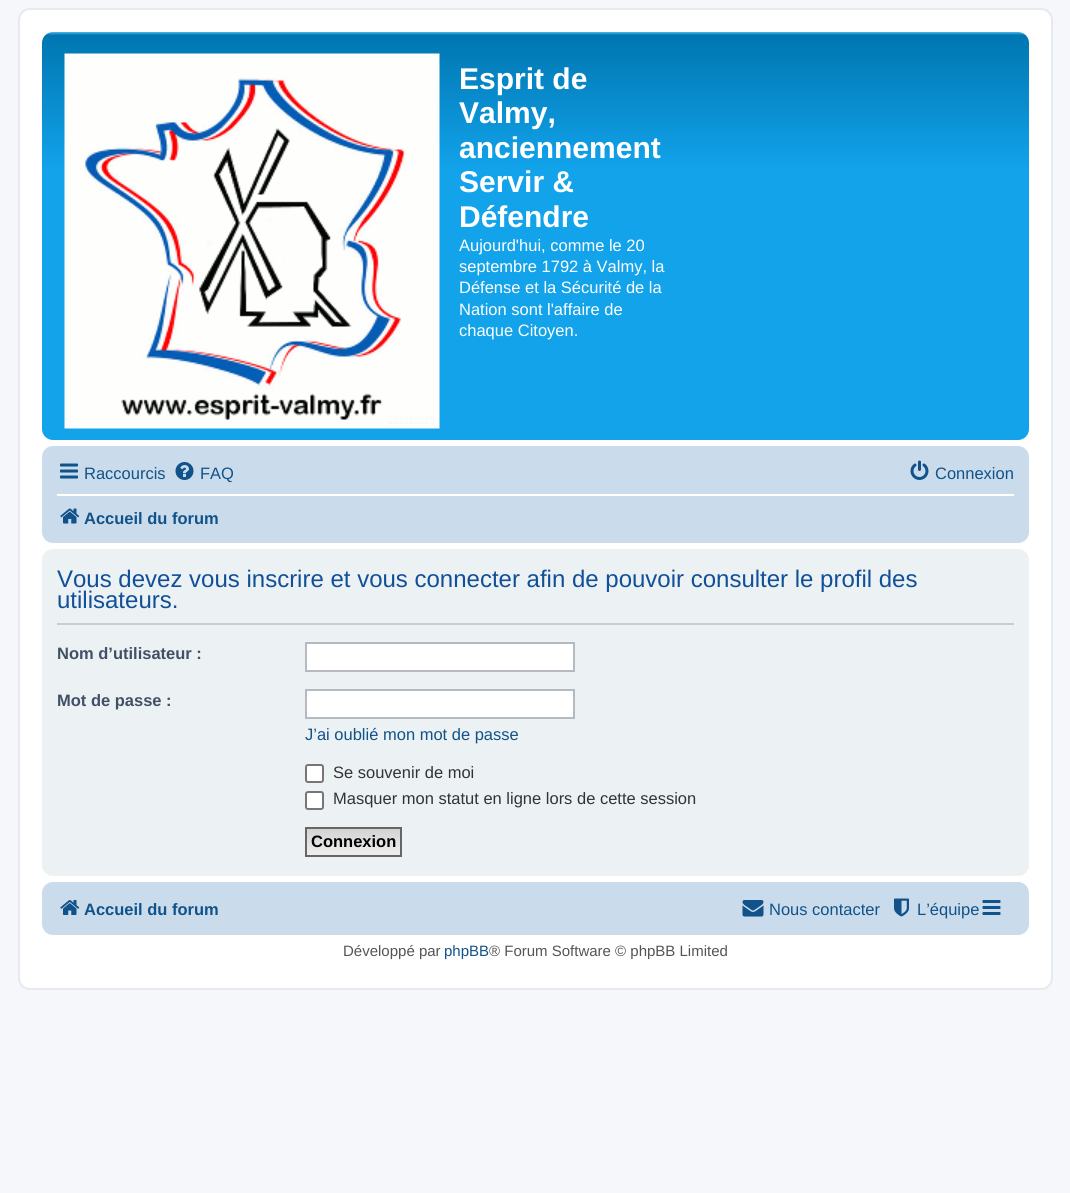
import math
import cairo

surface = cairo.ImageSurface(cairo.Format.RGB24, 1070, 1193)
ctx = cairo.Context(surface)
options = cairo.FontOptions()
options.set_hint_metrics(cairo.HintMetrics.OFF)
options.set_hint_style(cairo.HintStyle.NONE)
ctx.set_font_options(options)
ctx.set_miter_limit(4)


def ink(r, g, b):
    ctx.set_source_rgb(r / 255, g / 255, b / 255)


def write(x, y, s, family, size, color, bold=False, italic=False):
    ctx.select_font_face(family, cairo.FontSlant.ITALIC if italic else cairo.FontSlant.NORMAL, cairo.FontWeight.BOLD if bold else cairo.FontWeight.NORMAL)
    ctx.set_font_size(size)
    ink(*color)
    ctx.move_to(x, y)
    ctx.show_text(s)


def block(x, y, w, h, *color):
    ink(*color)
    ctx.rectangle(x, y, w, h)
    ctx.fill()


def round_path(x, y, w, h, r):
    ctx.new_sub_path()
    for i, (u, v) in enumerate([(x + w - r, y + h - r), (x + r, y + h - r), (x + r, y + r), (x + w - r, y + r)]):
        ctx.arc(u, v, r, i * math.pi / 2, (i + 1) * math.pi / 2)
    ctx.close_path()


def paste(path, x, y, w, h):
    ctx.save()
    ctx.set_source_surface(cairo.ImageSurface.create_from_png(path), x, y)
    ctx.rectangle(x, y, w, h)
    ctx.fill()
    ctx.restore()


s1 = dict(family="Liberation Sans", size=30, color=(255, 255, 255), bold=True)
s2 = dict(family="Liberation Sans", size=16.5, color=(255, 255, 255))
s3 = dict(family="Liberation Sans", size=16.5, color=(16, 82, 137))
s4 = dict(family="Liberation Sans", size=16.5, color=(16, 82, 137), bold=True)
s5 = dict(family="Liberation Sans", size=24, color=(17, 80, 152))
s6 = dict(family="Liberation Sans", size=16.5, color=(66, 80, 103), bold=True)
s7 = dict(family="Liberation Sans", size=16.5, color=(51, 51, 51))
s8 = dict(family="Liberation Sans", size=16.5, color=(0, 0, 0), bold=True)
s9 = dict(family="Liberation Sans", size=15, color=(85, 85, 85))
s10 = dict(family="Liberation Sans", size=15, color=(16, 82, 137))

ink(245, 247, 250)
ctx.paint()
ink(255, 255, 255)
round_path(19, 9, 1033, 980, 11)
ctx.fill_preserve()
ink(230, 233, 237)
ctx.stroke()
gradient = cairo.LinearGradient(536, 31, 536, 440)
gradient.add_color_stop_rgba(0, 0.416, 0.808, 1, 1)
gradient.add_color_stop_rgba(0.01, 0, 0.463, 0.694, 1)
gradient.add_color_stop_rgba(0.34, 0.071, 0.639, 0.922, 1)
gradient.add_color_stop_rgba(1, 0.071, 0.639, 0.922, 1)
ctx.set_source(gradient)
round_path(42, 32, 987, 408, 11)
ctx.fill()
paste("pic1.png", 64, 53, 376, 376)
write(459, 89, "Esprit de", **s1)
write(459, 123, "Valmy,", **s1)
write(459, 158, "anciennement", **s1)
write(459, 192, "Servir &", **s1)
write(459, 227, "Défendre", **s1)
write(459, 251, "Aujourd'hui, comme le 20", **s2)
write(459, 272, "septembre 1792 à Valmy, la", **s2)
write(459, 293, "Défense et la Sécurité de la", **s2)
write(459, 315, "Nation sont l'affaire de", **s2)
write(459, 336, "chaque Citoyen.", **s2)
ink(202, 220, 235)
round_path(42, 446, 987, 97, 11)
ctx.fill()
paste("pic2.png", 60, 463, 18, 16)
write(84, 479, "Raccourcis", **s3)
paste("pic3.png", 175, 462, 19, 18)
write(200, 479, "FAQ", **s3)
paste("pic4.png", 910, 460, 19, 20)
write(935, 479, "Connexion", **s3)
block(57, 494, 957, 2, 255, 255, 255)
paste("pic5.png", 60, 508, 20, 16)
write(84, 524, "Accueil du forum", **s4)
ink(236, 241, 243)
round_path(42, 549, 987, 327, 11)
ctx.fill()
block(57, 623, 957, 2, 204, 204, 204)
write(57, 587, "Vous devez vous inscrire et vous connecter afin de pouvoir consulter le profil des", **s5)
write(57, 608, "utilisateurs.", **s5)
write(57, 659, "Nom d’utilisateur :", **s6)
ink(255, 255, 255)
ctx.rectangle(306, 643, 268, 28)
ctx.fill_preserve()
ink(180, 186, 192)
ctx.stroke()
write(57, 706, "Mot de passe :", **s6)
ink(255, 255, 255)
ctx.rectangle(306, 690, 268, 28)
ctx.fill_preserve()
ink(180, 186, 192)
ctx.stroke()
write(305, 740, "J’ai oublié mon mot de passe", **s3)
ink(255, 255, 255)
round_path(306, 765, 17, 17, 2)
ctx.fill_preserve()
ink(118, 118, 118)
ctx.stroke()
write(333, 778, "Se souvenir de moi", **s7)
ink(255, 255, 255)
round_path(306, 792, 17, 17, 2)
ctx.fill_preserve()
ink(118, 118, 118)
ctx.stroke()
write(333, 804, "Masquer mon statut en ligne lors de cette session", **s7)
gradient = cairo.LinearGradient(353, 828, 353, 855)
gradient.add_color_stop_rgba(0, 0.824, 0.824, 0.824, 1)
gradient.add_color_stop_rgba(1, 0.937, 0.937, 0.937, 1)
ctx.set_source(gradient)
ctx.rectangle(307, 829, 93, 26)
ctx.fill()
ctx.rectangle(306, 828, 95, 28)
ink(102, 102, 102)
ctx.stroke()
write(311, 847, "Connexion", **s8)
ink(202, 220, 235)
round_path(42, 882, 987, 53, 11)
ctx.fill()
paste("pic6.png", 60, 900, 20, 15)
write(84, 915, "Accueil du forum", **s4)
paste("pic7.png", 742, 900, 22, 17)
write(769, 915, "Nous contacter", **s3)
paste("pic8.png", 894, 898, 15, 19)
write(917, 915, "L’équipe", **s3)
paste("pic9.png", 982, 900, 19, 15)
write(343, 956, "Développé par", **s9)
write(444, 956, "phpBB", **s10)
write(489, 956, "® Forum Software © phpBB Limited", **s9)
surface.write_to_png("screenshot.png")
